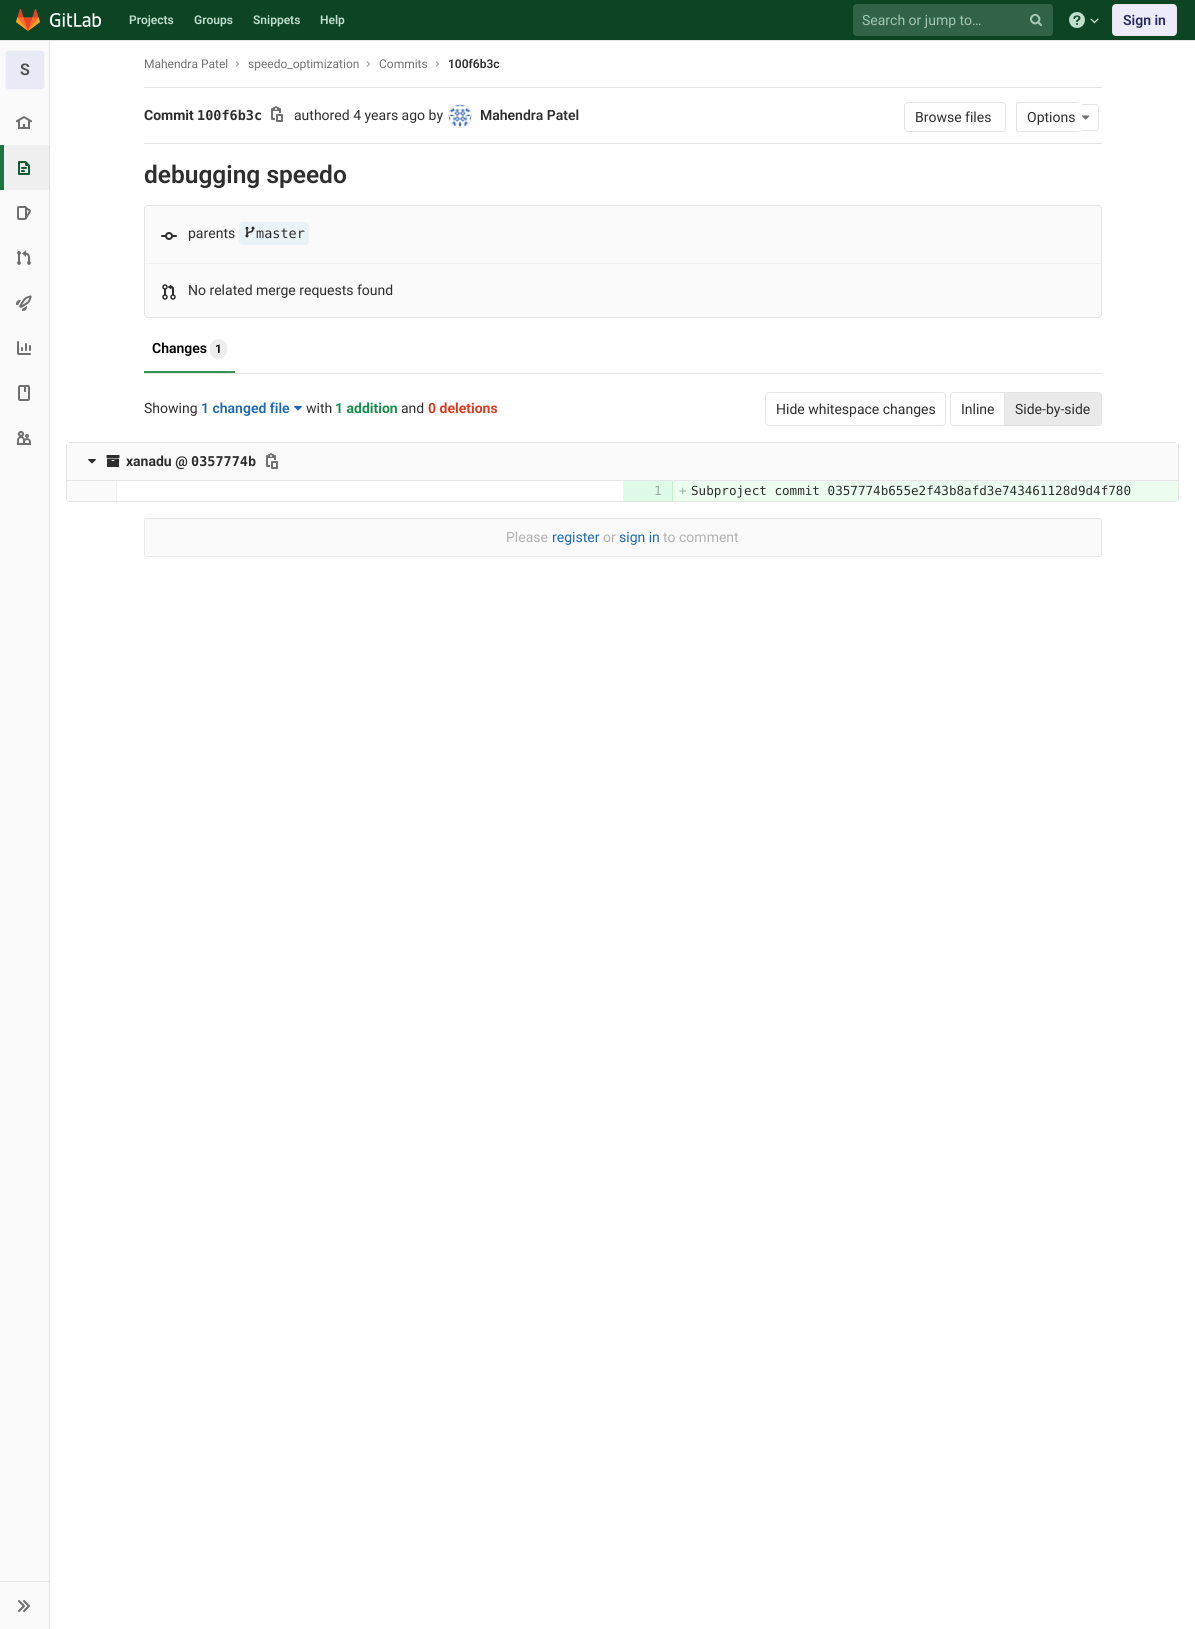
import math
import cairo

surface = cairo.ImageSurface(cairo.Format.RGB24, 1195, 1629)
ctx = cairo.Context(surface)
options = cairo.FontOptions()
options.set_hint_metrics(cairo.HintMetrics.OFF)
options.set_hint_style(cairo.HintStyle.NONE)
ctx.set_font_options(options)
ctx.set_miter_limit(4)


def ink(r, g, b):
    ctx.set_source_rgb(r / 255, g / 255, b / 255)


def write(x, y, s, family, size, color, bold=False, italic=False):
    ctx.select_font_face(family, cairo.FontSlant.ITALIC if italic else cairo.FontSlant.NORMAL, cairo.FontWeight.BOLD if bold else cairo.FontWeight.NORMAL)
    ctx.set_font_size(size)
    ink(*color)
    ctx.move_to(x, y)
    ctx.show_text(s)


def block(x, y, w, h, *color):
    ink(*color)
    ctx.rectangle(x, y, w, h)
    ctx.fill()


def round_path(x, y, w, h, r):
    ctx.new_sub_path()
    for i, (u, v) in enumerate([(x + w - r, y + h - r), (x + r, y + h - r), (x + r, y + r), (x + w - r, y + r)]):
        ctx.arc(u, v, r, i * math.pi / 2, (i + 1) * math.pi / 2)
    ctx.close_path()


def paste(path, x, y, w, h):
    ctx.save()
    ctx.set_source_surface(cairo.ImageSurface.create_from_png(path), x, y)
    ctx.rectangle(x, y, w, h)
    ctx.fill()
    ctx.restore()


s1 = dict(family="Roboto SemiBold", size=12, color=(192, 223, 205))
s2 = dict(family="Roboto", size=14, color=(163, 198, 178))
s3 = dict(family="Roboto SemiBold", size=14, color=(41, 41, 97))
s4 = dict(family="Roboto SemiBold", size=16, color=(79, 79, 79))
s5 = dict(family="Roboto", size=12, color=(112, 112, 112))
s6 = dict(family="Roboto SemiBold", size=12, color=(46, 46, 46))
s7 = dict(family="Roboto", size=14, color=(46, 46, 46), bold=True)
s8 = dict(family="DejaVu Sans Mono", size=13.5, color=(46, 46, 46), bold=True)
s9 = dict(family="Roboto", size=14, color=(46, 46, 46))
s10 = dict(family="Roboto SemiBold", size=14, color=(46, 46, 46))
s11 = dict(family="Roboto SemiBold", size=24.5, color=(46, 46, 46))
s12 = dict(family="DejaVu Sans Mono", size=13.5, color=(46, 46, 46))
s13 = dict(family="Roboto SemiBold", size=14, color=(0, 0, 0))
s14 = dict(family="Roboto SemiBold", size=12, color=(0, 0, 0))
s15 = dict(family="Roboto SemiBold", size=14, color=(27, 105, 182))
s16 = dict(family="Roboto", size=14, color=(22, 143, 72), bold=True)
s17 = dict(family="Roboto", size=14, color=(219, 59, 33), bold=True)
s18 = dict(family="DejaVu Sans Mono", size=12.6, color=(155, 176, 161))
s19 = dict(family="DejaVu Sans Mono", size=12.6, color=(46, 46, 46))
s20 = dict(family="Roboto", size=14, color=(178, 178, 178))
s21 = dict(family="Roboto", size=14, color=(27, 105, 182))

ink(255, 255, 255)
ctx.paint()
block(0, 0, 1195, 40, 13, 69, 36)
block(49, 40, 1, 1589, 229, 229, 229)
block(0, 40, 1195, 1, 229, 229, 229)
paste("pic1.png", 16, 8, 24, 23)
paste("pic2.png", 49, 13, 53, 14)
write(129, 24, "Projects", **s1)
write(194, 24, "Groups", **s1)
write(253, 24, "Snippets", **s1)
write(320, 24, "Help", **s1)
ink(49, 100, 70)
round_path(853, 4, 200, 32, 4)
ctx.fill()
write(862, 25, "Search or jump to…", **s2)
paste("pic3.png", 1029, 13, 13, 13)
paste("pic4.png", 1069, 12, 16, 16)
paste("pic5.png", 1090, 18, 9, 6)
ink(235, 235, 250)
round_path(1112.5, 4.5, 64, 31, 3.5)
ctx.fill_preserve()
ink(229, 229, 229)
ctx.set_line_width(1)
ctx.stroke()
write(1123, 25, "Sign in", **s3)
block(0, 41, 49, 1588, 250, 250, 250)
block(4, 145, 45, 45, 240, 240, 240)
block(49, 145, 1, 45, 220, 220, 220)
round_path(5.5, 50.5, 39, 39, 3.5)
ink(245, 245, 245)
ctx.stroke()
ink(232, 234, 246)
round_path(6, 51, 38, 38, 3)
ctx.fill()
write(20, 75, "S", **s4)
paste("pic6.png", 16, 116, 16, 13)
block(0, 145, 4, 45, 28, 116, 65)
paste("pic7.png", 18, 161, 12, 14)
paste("pic8.png", 17, 206, 14, 14)
paste("pic9.png", 17, 250, 14, 15)
paste("pic10.png", 16, 295, 16, 16)
paste("pic11.png", 17, 341, 14, 14)
paste("pic12.png", 18, 385, 12, 16)
paste("pic13.png", 17, 430, 14, 15)
block(0, 1581, 49, 1, 229, 229, 229)
paste("pic14.png", 18, 1600, 12, 12)
block(144, 87, 958, 1, 229, 229, 229)
write(144, 68, "Mahendra Patel", **s5)
paste("pic15.png", 235, 61, 4, 6)
write(248, 68, "speedo_optimization", **s5)
paste("pic15.png", 366, 61, 4, 6)
write(379, 68, "Commits", **s5)
paste("pic15.png", 435, 61, 4, 6)
write(448, 68, "100f6b3c", **s6)
write(144, 120, "Commit", **s7)
write(197, 120, "100f6b3c", **s8)
paste("pic16.png", 271, 106, 12, 16)
write(294, 120, "authored 4 years ago by", **s9)
ctx.new_path()
ctx.arc(460, 116, 11.5, 0, 2 * math.pi)
ink(228, 228, 228)
ctx.stroke()
paste("pic17.png", 449, 105, 22, 22)
write(480, 120, "Mahendra Patel", **s10)
round_path(904.5, 102.5, 101, 29, 3.5)
ink(229, 229, 229)
ctx.stroke()
write(915, 122, "Browse files", **s9)
ink(229, 229, 229)
ctx.set_fill_rule(cairo.FillRule.EVEN_ODD)
ctx.new_path()
ctx.move_to(1019, 102)
ctx.line_to(1076, 102)
ctx.line_to(1076, 132)
ctx.line_to(1019, 132)
ctx.curve_to(1017, 132, 1016, 131, 1016, 129)
ctx.line_to(1016, 105)
ctx.curve_to(1016, 103, 1017, 102, 1019, 102)
ctx.close_path()
ctx.move_to(1019, 103)
ctx.line_to(1076, 103)
ctx.line_to(1076, 131)
ctx.line_to(1019, 131)
ctx.curve_to(1018, 131, 1017, 130, 1017, 129)
ctx.line_to(1017, 105)
ctx.curve_to(1017, 104, 1018, 103, 1019, 103)
ctx.close_path()
ctx.fill()
block(1076, 102, 3, 1, 229, 229, 229)
block(1076, 131, 3, 1, 229, 229, 229)
ctx.new_path()
ctx.move_to(1082, 104)
ctx.line_to(1096, 104)
ctx.curve_to(1097.5, 104, 1099, 105.5, 1099, 107)
ctx.line_to(1099, 128)
ctx.curve_to(1099, 129.5, 1097.5, 131, 1096, 131)
ctx.line_to(1082, 131)
ctx.close_path()
ctx.move_to(1082, 105)
ctx.line_to(1096, 105)
ctx.curve_to(1097, 105, 1098, 106, 1098, 107)
ctx.line_to(1098, 128)
ctx.curve_to(1098, 129, 1097, 130, 1096, 130)
ctx.line_to(1082, 130)
ctx.close_path()
ctx.fill()
write(1027, 122, "Options", **s9)
paste("pic18.png", 1082, 115, 8, 5)
block(144, 143, 958, 1, 229, 229, 229)
write(144, 183, "debugging speedo", **s11)
ink(250, 250, 250)
round_path(144.5, 205.5, 957, 112, 3.5)
ctx.fill_preserve()
ink(229, 229, 229)
ctx.stroke()
block(145, 263, 956, 1, 238, 240, 242)
paste("pic19.png", 161, 232, 16, 8)
write(188, 238, "parents", **s9)
ink(232, 242, 247)
round_path(239, 222, 70, 23, 4)
ctx.fill()
paste("pic20.png", 245, 226, 10, 12)
write(256, 238, "master", **s12)
paste("pic21.png", 162, 284, 14, 16)
write(188, 295, "No related merge requests found", **s9)
block(144, 373, 958, 1, 229, 229, 229)
block(144, 371, 91, 2, 53, 147, 92)
write(152, 353, "Changes", **s13)
ink(237, 237, 237)
round_path(210, 339, 17, 20, 8.5)
ctx.fill()
write(215, 353, "1", **s14)
write(144, 413, "Showing", **s9)
write(201, 413, "1 changed file", **s15)
paste("pic22.png", 294, 406, 8, 5)
write(306, 413, "with", **s9)
write(335, 413, "1 addition", **s16)
write(401, 413, "and", **s9)
write(428, 413, "0 deletions", **s17)
round_path(765.5, 392.5, 180, 33, 3.5)
ink(229, 229, 229)
ctx.stroke()
write(776, 414, "Hide whitespace changes", **s9)
ctx.new_path()
ctx.move_to(954, 392.5)
ctx.line_to(1004.5, 392.5)
ctx.line_to(1004.5, 425.5)
ctx.line_to(954, 425.5)
ctx.curve_to(952, 425.5, 950.5, 424, 950.5, 422)
ctx.line_to(950.5, 396)
ctx.curve_to(950.5, 394, 952, 392.5, 954, 392.5)
ctx.close_path()
ink(229, 229, 229)
ctx.stroke()
write(961, 414, "Inline", **s9)
ink(234, 234, 234)
ctx.new_path()
ctx.move_to(1004.5, 392.5)
ctx.line_to(1098, 392.5)
ctx.curve_to(1100, 392.5, 1101.5, 394, 1101.5, 396)
ctx.line_to(1101.5, 422)
ctx.curve_to(1101.5, 424, 1100, 425.5, 1098, 425.5)
ctx.line_to(1004.5, 425.5)
ctx.close_path()
ctx.fill_preserve()
ink(227, 227, 227)
ctx.stroke()
write(1015, 414, "Side-by-side", **s9)
ink(229, 229, 229)
ctx.new_path()
ctx.move_to(70, 442)
ctx.line_to(1175, 442)
ctx.curve_to(1177, 442, 1179, 444, 1179, 446)
ctx.line_to(1179, 498)
ctx.curve_to(1179, 500, 1177, 502, 1175, 502)
ctx.line_to(70, 502)
ctx.curve_to(68, 502, 66, 500, 66, 498)
ctx.line_to(66, 446)
ctx.curve_to(66, 444, 68, 442, 70, 442)
ctx.close_path()
ctx.move_to(70, 442)
ctx.line_to(1175, 442)
ctx.curve_to(1177, 442, 1178, 444, 1178, 446)
ctx.line_to(1178, 498)
ctx.curve_to(1178, 500, 1177, 501, 1175, 501)
ctx.line_to(70, 501)
ctx.curve_to(68, 501, 67, 500, 67, 498)
ctx.line_to(67, 446)
ctx.curve_to(67, 444, 68, 442, 70, 442)
ctx.close_path()
ctx.fill()
ink(255, 255, 255)
ctx.set_fill_rule(cairo.FillRule.WINDING)
ctx.new_path()
ctx.move_to(71, 440)
ctx.curve_to(67, 440, 67, 443, 67, 446)
ctx.curve_to(67, 444, 69, 442, 71, 442)
ctx.line_to(1174, 442)
ctx.curve_to(1176, 442, 1178, 444, 1178, 446)
ctx.curve_to(1178, 443, 1178, 440, 1174, 440)
ctx.close_path()
ctx.fill()
ink(250, 250, 250)
ctx.new_path()
ctx.move_to(71, 442)
ctx.line_to(1174, 442)
ctx.curve_to(1176, 442, 1178, 444, 1178, 446)
ctx.line_to(1178, 481)
ctx.line_to(67, 481)
ctx.line_to(67, 446)
ctx.curve_to(67, 444, 69, 442, 71, 442)
ctx.close_path()
ctx.fill()
block(69, 442, 1107, 1, 229, 229, 229)
block(67, 480, 1111, 1, 229, 229, 229)
paste("pic23.png", 88, 459, 8, 5)
paste("pic24.png", 106, 455, 14, 12)
write(126, 466, "xanadu @", **s7)
write(191, 466, "0357774b", **s8)
paste("pic25.png", 266, 453, 12, 16)
ink(255, 255, 255)
ctx.new_path()
ctx.move_to(67, 481)
ctx.line_to(1178, 481)
ctx.line_to(1178, 498)
ctx.curve_to(1178, 499.5, 1176.5, 501, 1175, 501)
ctx.line_to(70, 501)
ctx.curve_to(68.5, 501, 67, 499.5, 67, 498)
ctx.close_path()
ctx.fill()
ink(250, 250, 250)
ctx.new_path()
ctx.move_to(67, 481)
ctx.line_to(117, 481)
ctx.line_to(117, 501)
ctx.line_to(71, 501)
ctx.curve_to(69, 501, 67, 499, 67, 497)
ctx.close_path()
ctx.fill()
block(116, 481, 1, 20, 240, 240, 240)
block(623, 481, 49, 20, 221, 251, 230)
block(672, 481, 1, 20, 199, 240, 210)
write(654, 495, "1", **s18)
block(673, 481, 505, 20, 236, 253, 240)
write(679, 495, "+", **s18)
write(691, 495, "Subproject commit 0357774b655e2f43b8afd3e743461128d9d4f780", **s19)
ink(250, 250, 250)
round_path(144.5, 518.5, 957, 38, 2.5)
ctx.fill_preserve()
ink(232, 232, 232)
ctx.stroke()
write(506, 542, "Please", **s20)
write(552, 542, "register", **s21)
write(603, 542, "or", **s20)
write(619, 542, "sign in", **s21)
write(663, 542, "to comment", **s20)
surface.write_to_png("screenshot.png")
